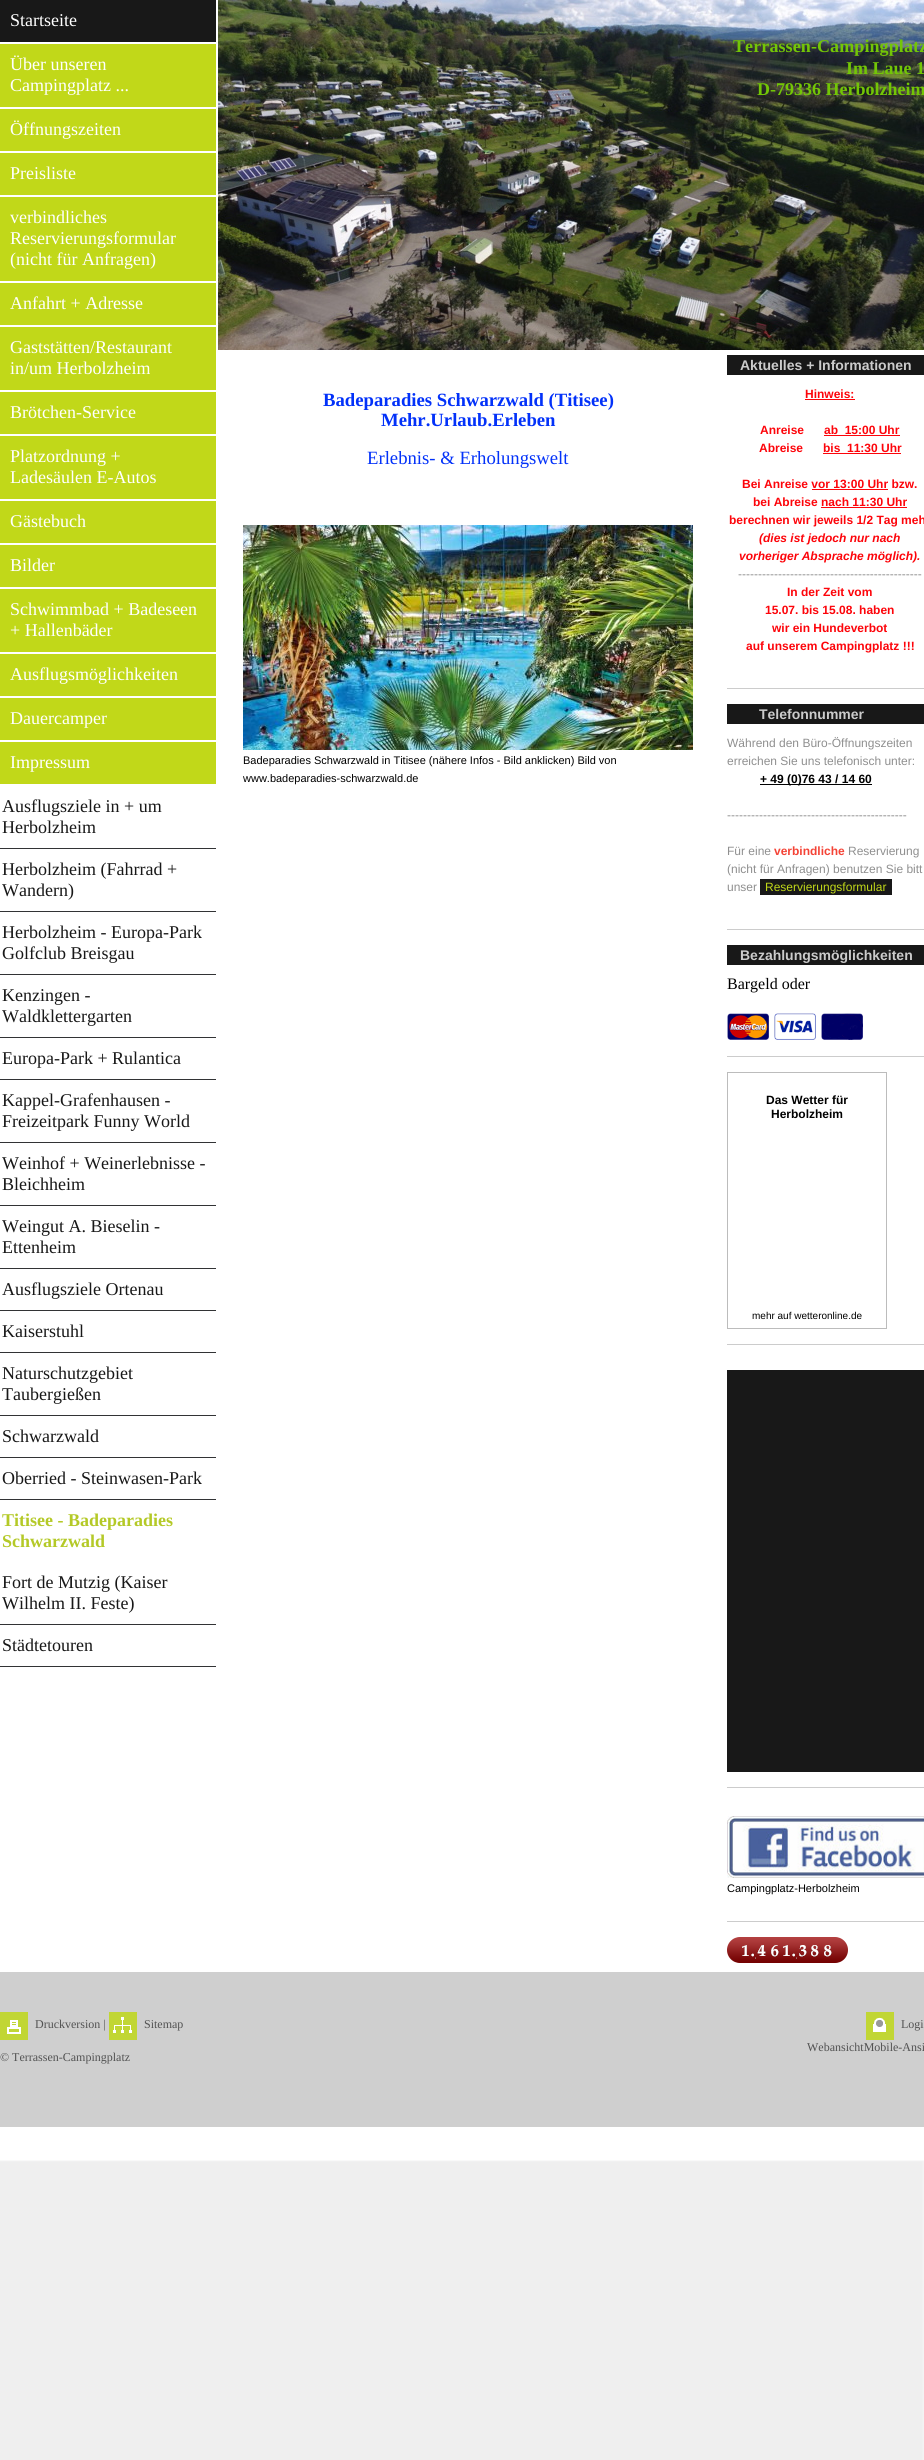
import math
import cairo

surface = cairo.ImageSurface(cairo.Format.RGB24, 924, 2460)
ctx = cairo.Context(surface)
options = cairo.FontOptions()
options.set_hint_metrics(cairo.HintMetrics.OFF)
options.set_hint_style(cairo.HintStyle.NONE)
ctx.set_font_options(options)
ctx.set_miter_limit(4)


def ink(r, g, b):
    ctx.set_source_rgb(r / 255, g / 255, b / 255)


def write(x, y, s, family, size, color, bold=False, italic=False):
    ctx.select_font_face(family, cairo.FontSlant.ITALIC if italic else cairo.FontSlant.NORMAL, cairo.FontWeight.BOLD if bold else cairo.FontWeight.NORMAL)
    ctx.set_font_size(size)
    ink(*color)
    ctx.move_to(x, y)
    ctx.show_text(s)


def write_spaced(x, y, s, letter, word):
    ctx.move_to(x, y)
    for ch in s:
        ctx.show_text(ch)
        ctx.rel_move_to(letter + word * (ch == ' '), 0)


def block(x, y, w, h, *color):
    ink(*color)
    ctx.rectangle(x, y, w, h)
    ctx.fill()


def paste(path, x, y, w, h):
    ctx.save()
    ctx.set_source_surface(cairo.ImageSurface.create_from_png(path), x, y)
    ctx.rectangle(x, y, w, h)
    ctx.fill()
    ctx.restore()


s1 = dict(family="Liberation Serif", size=18, color=(255, 255, 255))
s2 = dict(family="Liberation Serif", size=18, color=(24, 24, 24))
s3 = dict(family="Liberation Serif", size=18, color=(180, 201, 39), bold=True)
s4 = dict(family="Liberation Serif", size=18, color=(115, 198, 6), bold=True)
s5 = dict(family="Liberation Serif", size=18.7, color=(2, 49, 249), bold=True)
s6 = dict(family="Liberation Serif", size=18.7, color=(2, 49, 249))
s7 = dict(family="Liberation Sans", size=11, color=(0, 0, 0))
s8 = dict(family="Liberation Sans", size=14, color=(203, 203, 203), bold=True)
s9 = dict(family="Liberation Sans", size=12, color=(253, 4, 10), bold=True)
s10 = dict(family="Liberation Sans", size=12, color=(253, 4, 10), bold=True, italic=True)
s11 = dict(family="Liberation Sans", size=12, color=(143, 143, 143))
s12 = dict(family="Liberation Sans", size=12, color=(0, 0, 0), bold=True)
s13 = dict(family="Liberation Sans", size=12, color=(244, 67, 54), bold=True)
s14 = dict(family="Liberation Sans", size=12, color=(193, 216, 25))
s15 = dict(family="Liberation Serif", size=16, color=(0, 0, 0))
s16 = dict(family="Liberation Sans", size=10, color=(0, 0, 0))
s17 = dict(family="Liberation Serif", size=12, color=(82, 82, 82))

ink(255, 255, 255)
ctx.paint()
paste("pic1.png", 0, 2160, 924, 300)
block(0, 0, 216, 42, 24, 24, 24)
write(10, 26, "Startseite", **s1)
block(0, 44, 216, 63, 193, 216, 25)
write(10, 70, "Über unseren", **s1)
write(10, 91, "Campingplatz ...", **s1)
block(0, 109, 216, 42, 193, 216, 25)
write(10, 135, "Öffnungszeiten", **s1)
block(0, 153, 216, 42, 193, 216, 25)
write(10, 179, "Preisliste", **s1)
block(0, 197, 216, 84, 193, 216, 25)
write(10, 223, "verbindliches", **s1)
write(10, 244, "Reservierungsformular", **s1)
write(10, 265, "(nicht für Anfragen)", **s1)
block(0, 283, 216, 42, 193, 216, 25)
write(10, 309, "Anfahrt + Adresse", **s1)
block(0, 327, 216, 63, 193, 216, 25)
write(10, 353, "Gaststätten/Restaurant", **s1)
write(10, 374, "in/um Herbolzheim", **s1)
block(0, 392, 216, 42, 193, 216, 25)
write(10, 418, "Brötchen-Service", **s1)
block(0, 436, 216, 63, 193, 216, 25)
write(10, 462, "Platzordnung +", **s1)
write(10, 483, "Ladesäulen E-Autos", **s1)
block(0, 501, 216, 42, 193, 216, 25)
write(10, 527, "Gästebuch", **s1)
block(0, 545, 216, 42, 193, 216, 25)
write(10, 571, "Bilder", **s1)
block(0, 589, 216, 63, 193, 216, 25)
write(10, 615, "Schwimmbad + Badeseen", **s1)
write(10, 636, "+ Hallenbäder", **s1)
block(0, 654, 216, 42, 193, 216, 25)
write(10, 680, "Ausflugsmöglichkeiten", **s1)
block(0, 698, 216, 42, 193, 216, 25)
write(10, 724, "Dauercamper", **s1)
block(0, 742, 216, 42, 193, 216, 25)
write(10, 768, "Impressum", **s1)
block(0, 848, 216, 1, 50, 51, 53)
write(2, 812, "Ausflugsziele in + um", **s2)
write(2, 833, "Herbolzheim", **s2)
block(0, 911, 216, 1, 50, 51, 53)
write(2, 875, "Herbolzheim (Fahrrad +", **s2)
write(2, 896, "Wandern)", **s2)
block(0, 974, 216, 1, 50, 51, 53)
write(2, 938, "Herbolzheim - Europa-Park", **s2)
write(2, 959, "Golfclub Breisgau", **s2)
block(0, 1037, 216, 1, 50, 51, 53)
write(2, 1001, "Kenzingen -", **s2)
write(2, 1022, "Waldklettergarten", **s2)
block(0, 1079, 216, 1, 50, 51, 53)
write(2, 1064, "Europa-Park + Rulantica", **s2)
block(0, 1142, 216, 1, 50, 51, 53)
write(2, 1106, "Kappel-Grafenhausen -", **s2)
write(2, 1127, "Freizeitpark Funny World", **s2)
block(0, 1205, 216, 1, 50, 51, 53)
write(2, 1169, "Weinhof + Weinerlebnisse -", **s2)
write(2, 1190, "Bleichheim", **s2)
block(0, 1268, 216, 1, 50, 51, 53)
write(2, 1232, "Weingut A. Bieselin -", **s2)
write(2, 1253, "Ettenheim", **s2)
block(0, 1310, 216, 1, 50, 51, 53)
write(2, 1295, "Ausflugsziele Ortenau", **s2)
block(0, 1352, 216, 1, 50, 51, 53)
write(2, 1337, "Kaiserstuhl", **s2)
block(0, 1415, 216, 1, 50, 51, 53)
write(2, 1379, "Naturschutzgebiet", **s2)
write(2, 1400, "Taubergießen", **s2)
block(0, 1457, 216, 1, 50, 51, 53)
write(2, 1442, "Schwarzwald", **s2)
block(0, 1499, 216, 1, 50, 51, 53)
write(2, 1484, "Oberried - Steinwasen-Park", **s2)
write(2, 1526, "Titisee - Badeparadies", **s3)
write(2, 1547, "Schwarzwald", **s3)
block(0, 1624, 216, 1, 50, 51, 53)
write(2, 1588, "Fort de Mutzig (Kaiser", **s2)
write(2, 1609, "Wilhelm II. Feste)", **s2)
block(0, 1666, 216, 1, 50, 51, 53)
write(2, 1651, "Städtetouren", **s2)
paste("pic2.png", 218, 0, 706, 350)
ctx.select_font_face("Liberation Serif", cairo.FontSlant.NORMAL, cairo.FontWeight.BOLD)
ink(115, 198, 6)
write_spaced(733, 52, "Terrassen-Campingplatz", 0.1, 0)
write(846, 74, "Im Laue 1", **s4)
write(757, 95, "D-79336 Herbolzheim", **s4)
write(323, 406, "Badeparadies Schwarzwald (Titisee)", **s5)
write(381, 426, "Mehr.Urlaub.Erleben", **s5)
write(367, 464, "Erlebnis- & Erholungswelt", **s6)
paste("pic3.png", 243, 525, 450, 225)
write(243, 764, "Badeparadies Schwarzwald in Titisee (nähere Infos - Bild anklicken) Bild von", **s7)
write(243, 782, "www.badeparadies-schwarzwald.de", **s7)
block(727, 355, 197, 20, 24, 24, 24)
write(740, 370, "Aktuelles + Informationen", **s8)
write(805, 398, "Hinweis:", **s9)
block(805, 399, 50, 1, 253, 4, 10)
write(760, 434, "Anreise", **s9)
write(824, 434, "ab  15:00 Uhr", **s9)
block(824, 435, 76, 1, 253, 4, 10)
write(759, 452, "Abreise", **s9)
write(823, 452, "bis  11:30 Uhr", **s9)
block(823, 453, 78, 1, 253, 4, 10)
write(742, 488, "Bei Anreise vor 13:00 Uhr bzw.", **s9)
block(812, 489, 76, 1, 253, 4, 10)
write(753, 506, "bei Abreise nach 11:30 Uhr", **s9)
block(821, 507, 86, 1, 253, 4, 10)
write(729, 524, "berechnen wir jeweils 1/2 Tag meh", **s9)
write(759, 542, "(dies ist jedoch nur nach", **s10)
write(739, 560, "vorheriger Absprache möglich).", **s10)
write(738, 578, "----------------------------------------------", **s11)
write(787, 596, "In der Zeit vom", **s9)
write(765, 614, "15.07. bis 15.08. haben", **s9)
write(772, 632, "wir ein Hundeverbot", **s9)
write(746, 650, "auf unserem Campingplatz !!!", **s9)
block(727, 688, 197, 1, 204, 204, 204)
block(727, 704, 197, 20, 24, 24, 24)
write(759, 719, "Telefonnummer", **s8)
write(727, 747, "Während den Büro-Öffnungszeiten", **s11)
write(727, 765, "erreichen Sie uns telefonisch unter:", **s11)
block(760, 784, 112, 1, 0, 0, 0)
write(760, 783, "+ 49 (0)76 43 / 14 60", **s12)
write(727, 819, "---------------------------------------------", **s11)
write(727, 855, "Für eine", **s11)
write(774, 855, "verbindliche", **s13)
write(848, 855, "Reservierung", **s11)
write(727, 873, "(nicht für Anfragen) benutzen Sie bitt", **s11)
write(727, 891, "unser", **s11)
block(760, 879, 132, 16, 24, 24, 24)
write(765, 891, "Reservierungsformular", **s14)
block(727, 929, 197, 1, 204, 204, 204)
block(727, 945, 197, 20, 24, 24, 24)
write(740, 960, "Bezahlungsmöglichkeiten", **s8)
write(727, 989, "Bargeld oder", **s15)
paste("pic4.png", 727, 1013, 42, 27)
paste("pic5.png", 774, 1013, 42, 27)
paste("pic6.png", 821, 1013, 42, 27)
block(727, 1056, 197, 1, 204, 204, 204)
ctx.rectangle(727.5, 1072.5, 159, 256)
ink(188, 188, 188)
ctx.set_line_width(1)
ctx.stroke()
write(766, 1104, "Das Wetter für", **s12)
write(771, 1118, "Herbolzheim", **s12)
write(752, 1319, "mehr auf wetteronline.de", **s16)
block(727, 1344, 197, 1, 204, 204, 204)
block(727, 1370, 197, 402, 24, 24, 24)
block(727, 1787, 197, 1, 204, 204, 204)
paste("pic7.png", 727, 1816, 197, 62)
write(727, 1892, "Campingplatz-Herbolzheim", **s7)
block(727, 1921, 197, 1, 204, 204, 204)
paste("pic8.png", 727, 1937, 14, 26)
paste("pic9.png", 741, 1937, 10, 26)
paste("pic10.png", 751, 1937, 5, 26)
paste("pic11.png", 756, 1937, 13, 26)
paste("pic12.png", 769, 1937, 13, 26)
paste("pic9.png", 782, 1937, 10, 26)
paste("pic10.png", 792, 1937, 5, 26)
paste("pic13.png", 797, 1937, 12, 26)
paste("pic14.png", 809, 1937, 13, 26)
paste("pic14.png", 822, 1937, 13, 26)
paste("pic15.png", 835, 1937, 13, 26)
block(0, 1972, 924, 155, 207, 207, 207)
paste("pic16.png", 0, 2012, 28, 28)
write(35, 2028, "Druckversion |", **s17)
paste("pic17.png", 109, 2012, 28, 28)
write(144, 2028, "Sitemap", **s17)
write(0, 2061, "© Terrassen-Campingplatz", **s17)
paste("pic18.png", 866, 2012, 28, 28)
write(901, 2028, "Logi", **s17)
write(807, 2051, "WebansichtMobile-Ansi", **s17)
surface.write_to_png("screenshot.png")
